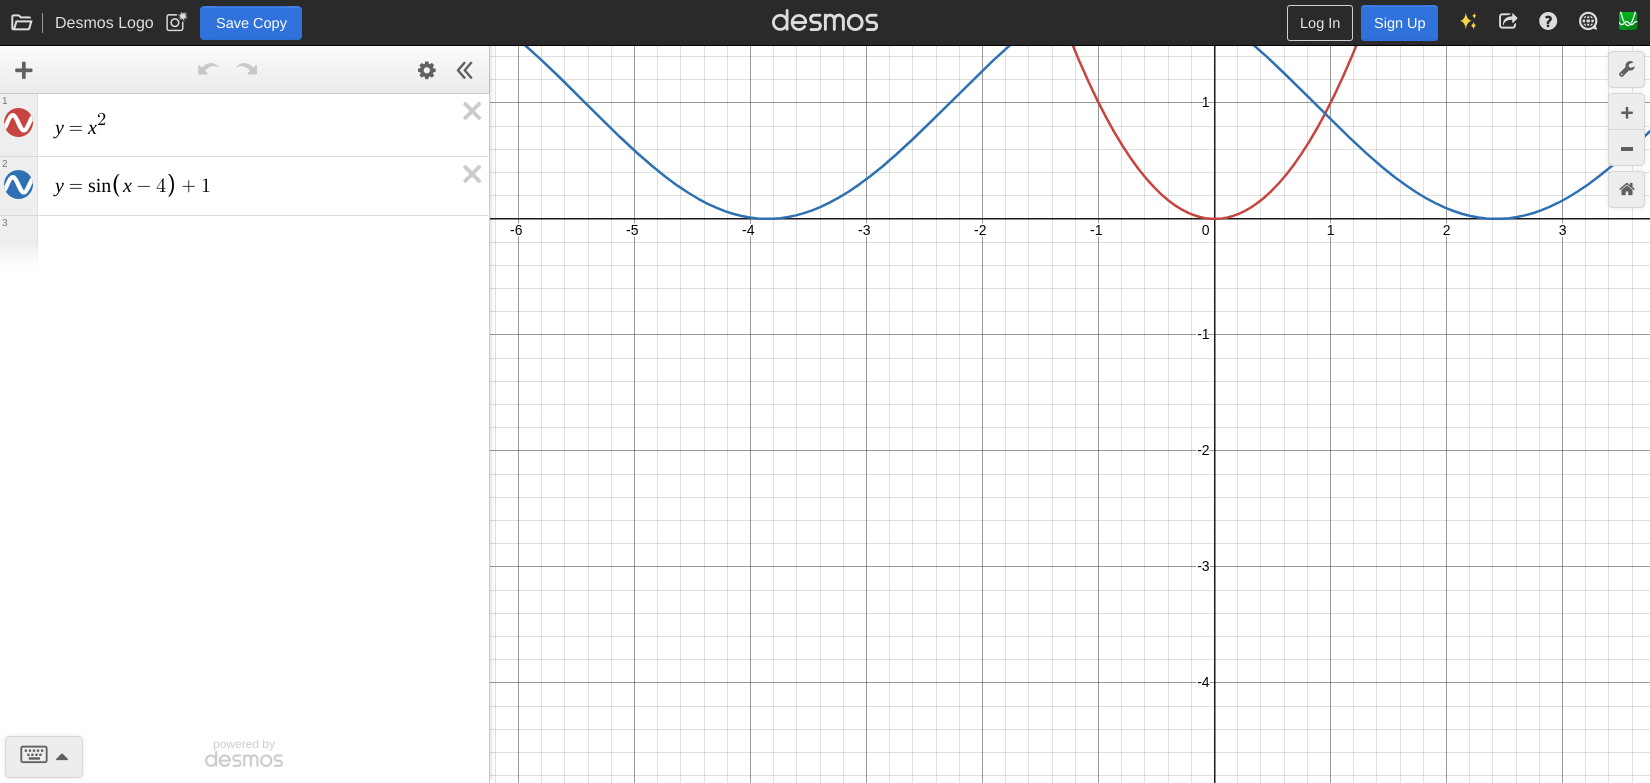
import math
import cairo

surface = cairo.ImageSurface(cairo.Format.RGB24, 1650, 783)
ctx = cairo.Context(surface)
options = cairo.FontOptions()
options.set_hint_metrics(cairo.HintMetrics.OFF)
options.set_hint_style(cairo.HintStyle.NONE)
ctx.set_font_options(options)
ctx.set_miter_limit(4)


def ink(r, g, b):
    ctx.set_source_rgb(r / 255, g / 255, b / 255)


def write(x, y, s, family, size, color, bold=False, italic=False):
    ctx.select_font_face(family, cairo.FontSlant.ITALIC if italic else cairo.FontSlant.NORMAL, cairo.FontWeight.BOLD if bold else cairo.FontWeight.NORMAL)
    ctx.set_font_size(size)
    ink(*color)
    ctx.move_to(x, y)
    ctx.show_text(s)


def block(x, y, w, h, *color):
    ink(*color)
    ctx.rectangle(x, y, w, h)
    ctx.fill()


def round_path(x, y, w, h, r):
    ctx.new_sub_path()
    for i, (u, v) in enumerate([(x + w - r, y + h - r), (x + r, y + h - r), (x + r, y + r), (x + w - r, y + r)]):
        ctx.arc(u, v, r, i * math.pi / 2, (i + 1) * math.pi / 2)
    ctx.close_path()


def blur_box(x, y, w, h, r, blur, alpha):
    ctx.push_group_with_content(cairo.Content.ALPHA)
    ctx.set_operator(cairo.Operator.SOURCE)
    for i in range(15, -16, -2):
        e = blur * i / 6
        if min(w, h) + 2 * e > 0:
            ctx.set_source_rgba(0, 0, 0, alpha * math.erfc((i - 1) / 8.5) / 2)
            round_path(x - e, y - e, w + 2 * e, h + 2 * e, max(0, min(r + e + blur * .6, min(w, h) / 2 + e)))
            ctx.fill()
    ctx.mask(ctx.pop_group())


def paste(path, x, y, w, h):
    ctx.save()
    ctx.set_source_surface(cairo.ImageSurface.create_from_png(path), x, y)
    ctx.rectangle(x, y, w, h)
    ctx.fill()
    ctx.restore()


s1 = dict(family="Liberation Sans", size=16, color=(221, 221, 221))
s2 = dict(family="Liberation Sans", size=14.5, color=(255, 255, 255))
s3 = dict(family="Liberation Sans", size=14.5, color=(229, 229, 229))
s4 = dict(family="Liberation Sans", size=10, color=(119, 119, 119))
s5 = dict(family="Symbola", size=18, color=(0, 0, 0))
s6 = dict(family="Liberation Serif", size=20, color=(0, 0, 0), italic=True)
s7 = dict(family="Symbola", size=20, color=(0, 0, 0))
s8 = dict(family="Liberation Serif", size=20, color=(0, 0, 0))
s9 = dict(family="Liberation Sans", size=12, color=(204, 204, 204))

ink(255, 255, 255)
ctx.paint()
block(0, 0, 1650, 45, 42, 42, 42)
block(0, 45, 1650, 1, 0, 0, 0)
paste("pic1.png", 11, 14, 22, 17)
block(42, 13, 1, 20, 148, 148, 148)
write(55, 28, "Desmos Logo", **s1)
paste("pic2.png", 166, 11, 22, 21)
ink(47, 114, 220)
round_path(200, 6, 102, 34, 4)
ctx.fill()
ink(45, 109, 211)
ctx.new_path()
ctx.move_to(201, 35)
ctx.curve_to(201, 43, 217, 39, 220, 39)
ctx.line_to(282, 39)
ctx.curve_to(285, 39, 301, 43, 301, 35)
ctx.curve_to(301, 37, 300, 38, 298, 38)
ctx.line_to(204, 38)
ctx.curve_to(202, 38, 201, 37, 201, 35)
ctx.close_path()
ctx.fill()
ink(68, 128, 224)
ctx.new_path()
ctx.move_to(204, 8)
ctx.line_to(298, 8)
ctx.curve_to(300, 8, 301, 9, 301, 11)
ctx.curve_to(301, 3, 285, 7, 282, 7)
ctx.line_to(220, 7)
ctx.curve_to(217, 7, 201, 3, 201, 11)
ctx.curve_to(201, 9, 202, 8, 204, 8)
ctx.close_path()
ctx.fill()
write(216, 28, "Save Copy", **s2)
paste("pic3.png", 772, 9, 106, 22)
round_path(1287.5, 5.5, 65, 35, 2.5)
ink(208, 208, 208)
ctx.set_line_width(1)
ctx.stroke()
write(1300, 28, "Log In", **s3)
ink(47, 114, 220)
round_path(1361, 5, 77, 36, 3)
ctx.fill()
ink(45, 109, 211)
ctx.new_path()
ctx.move_to(1362, 37)
ctx.curve_to(1362, 43, 1373, 40, 1376, 40)
ctx.line_to(1423, 40)
ctx.curve_to(1426, 40, 1437, 43, 1437, 37)
ctx.curve_to(1437, 38, 1436, 39, 1435, 39)
ctx.line_to(1364, 39)
ctx.curve_to(1363, 39, 1362, 38, 1362, 37)
ctx.close_path()
ctx.fill()
ink(68, 128, 224)
ctx.new_path()
ctx.move_to(1364, 7)
ctx.line_to(1435, 7)
ctx.curve_to(1436, 7, 1437, 8, 1437, 9)
ctx.curve_to(1437, 3, 1426, 6, 1423, 6)
ctx.line_to(1376, 6)
ctx.curve_to(1373, 6, 1362, 3, 1362, 9)
ctx.curve_to(1362, 8, 1363, 7, 1364, 7)
ctx.close_path()
ctx.fill()
write(1374, 28, "Sign Up", **s2)
paste("pic4.png", 1460, 12, 17, 18)
paste("pic5.png", 1499, 13, 19, 16)
paste("pic6.png", 1539, 12, 19, 18)
paste("pic7.png", 1579, 11, 19, 20)
gradient = cairo.LinearGradient(1634, 32, 1622, 10)
gradient.add_color_stop_rgba(0.06, 0, 0.486, 0.078, 1)
gradient.add_color_stop_rgba(0.75, 0, 0.698, 0.114, 1)
ctx.set_source(gradient)
round_path(1619, 12, 18, 18, 2)
ctx.fill()
paste("pic8.png", 1619, 11, 19, 16)
paste("pic21.png", 490, 46, 1160, 737)
ink(0, 0, 0)
blur_box(1608, 93, 37, 73, 5, 2.5, 0.1)
ink(237, 237, 237)
round_path(1608, 93, 37, 73, 5)
ctx.fill()
round_path(1608.5, 93.5, 36, 72, 4.5)
ctx.set_source_rgba(0, 0, 0, 0.1)
ctx.stroke()
ink(0, 0, 0)
blur_box(1608, 51, 37, 37, 5, 2.5, 0.1)
ink(237, 237, 237)
round_path(1608, 51, 37, 37, 5)
ctx.fill()
round_path(1608.5, 51.5, 36, 36, 4.5)
ctx.set_source_rgba(0, 0, 0, 0.1)
ctx.stroke()
paste("pic9.png", 1619, 61, 16, 16)
block(1609, 129, 35, 1, 213, 213, 213)
paste("pic10.png", 1621, 106, 12, 13)
block(1621, 147, 12, 4, 95, 95, 95)
ink(0, 0, 0)
blur_box(1608, 171, 37, 37, 5, 2.5, 0.1)
ink(237, 237, 237)
round_path(1608, 171, 37, 37, 5)
ctx.fill()
round_path(1608.5, 171.5, 36, 36, 4.5)
ctx.set_source_rgba(0, 0, 0, 0.1)
ctx.stroke()
paste("pic11.png", 1619, 182, 16, 14)
ctx.save()
ctx.rectangle(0, 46, 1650, 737)
ctx.clip()
ctx.rectangle(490, 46, 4, 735)
ctx.clip()
ink(0, 0, 0)
blur_box(0, 42, 490, 737, 0, 3, 0.2)
ctx.restore()
gradient = cairo.LinearGradient(245, 46, 245, 93)
gradient.add_color_stop_rgba(0, 0.988, 0.988, 0.988, 1)
gradient.add_color_stop_rgba(1, 0.918, 0.918, 0.918, 1)
ctx.set_source(gradient)
ctx.rectangle(0, 46, 490, 47)
ctx.fill()
gradient = cairo.LinearGradient(245, 93, 245, 140)
gradient.add_color_stop_rgba(0, 0.988, 0.988, 0.988, 1)
gradient.add_color_stop_rgba(1, 0.918, 0.918, 0.918, 1)
ctx.set_source(gradient)
ctx.rectangle(0, 93, 490, 1)
ctx.fill()
ctx.set_source_rgba(0, 0, 0, 0.2)
ctx.new_path()
ctx.move_to(490, 46)
ctx.line_to(490, 94)
ctx.line_to(489, 93)
ctx.line_to(489, 46)
ctx.close_path()
ctx.fill()
ctx.new_path()
ctx.move_to(490, 94)
ctx.line_to(0, 94)
ctx.line_to(0, 93)
ctx.line_to(489, 93)
ctx.close_path()
ctx.fill()
paste("pic12.png", 15, 61, 18, 18)
paste("pic13.png", 198, 63, 21, 12)
paste("pic14.png", 236, 63, 21, 12)
paste("pic15.png", 418, 61, 18, 19)
paste("pic16.png", 456, 61, 17, 18)
block(489, 94, 1, 689, 204, 204, 204)
block(0, 94, 37, 62, 238, 238, 238)
block(37, 94, 1, 62, 224, 224, 224)
write(2, 104, "1", **s4)
ink(199, 68, 64)
ctx.new_path()
ctx.arc(18.5, 122.5, 14.5, 0, 2 * math.pi)
ctx.fill()
paste("pic17.png", 4, 113, 29, 20)
write(97, 125, "2", **s5)
write(55, 134, "y", **s6)
write(68, 134, "=", **s7)
write(88, 134, "x", **s6)
paste("pic18.png", 463, 102, 19, 18)
ink(216, 216, 216)
ctx.new_path()
ctx.move_to(0, 156)
ctx.line_to(489, 156)
ctx.line_to(488, 157)
ctx.line_to(0, 157)
ctx.close_path()
ctx.fill()
block(0, 157, 37, 58, 238, 238, 238)
block(37, 157, 1, 58, 224, 224, 224)
write(2, 167, "2", **s4)
ink(45, 112, 179)
ctx.new_path()
ctx.arc(18.5, 184.5, 14.5, 0, 2 * math.pi)
ctx.fill()
paste("pic19.png", 4, 175, 29, 20)
paste("pic18.png", 463, 165, 19, 18)
write(55, 192, "y", **s6)
write(68, 192, "=", **s7)
write(88, 192, "sin", **s8)
ctx.new_path()
ctx.move_to(119.5, 174)
ctx.curve_to(114.5, 178, 114.5, 192, 119.5, 196.5)
ctx.line_to(118.5, 196.5)
ctx.curve_to(112, 192, 112, 178, 118.5, 174)
ctx.move_to(168, 174)
ctx.curve_to(173.5, 178, 173.5, 192, 168, 196.5)
ctx.line_to(169.5, 196.5)
ctx.curve_to(175.5, 192, 175.5, 178, 169.5, 174)
ctx.fill()
write(123, 192, "x", **s6)
write(136, 192, "−", **s7)
write(156, 192, "4", **s7)
write(181, 192, "+", **s7)
write(201, 192, "1", **s7)
ink(216, 216, 216)
ctx.new_path()
ctx.move_to(0, 215)
ctx.line_to(489, 215)
ctx.line_to(488, 216)
ctx.line_to(0, 216)
ctx.close_path()
ctx.fill()
block(0, 216, 37, 52, 238, 238, 238)
block(37, 216, 1, 52, 224, 224, 224)
write(2, 226, "3", **s4)
gradient = cairo.LinearGradient(22, 268, 22, 216)
gradient.add_color_stop_rgba(0, 1, 1, 1, 1)
gradient.add_color_stop_rgba(0.5, 1, 1, 1, 0)
ctx.set_source(gradient)
ctx.rectangle(0, 244, 38, 24)
ctx.fill()
write(213, 748, "powered by", **s9)
paste("pic20.png", 205, 751, 78, 16)
ink(0, 0, 0)
blur_box(5, 736, 78, 42, 5, 2.5, 0.1)
ink(237, 237, 237)
round_path(5, 736, 78, 42, 5)
ctx.fill()
round_path(5.5, 736.5, 77, 41, 4.5)
ctx.set_source_rgba(0, 0, 0, 0.1)
ctx.stroke()
paste("pic22.png", 20, 745, 28, 19)
paste("pic23.png", 56, 753, 12, 8)
surface.write_to_png("screenshot.png")
